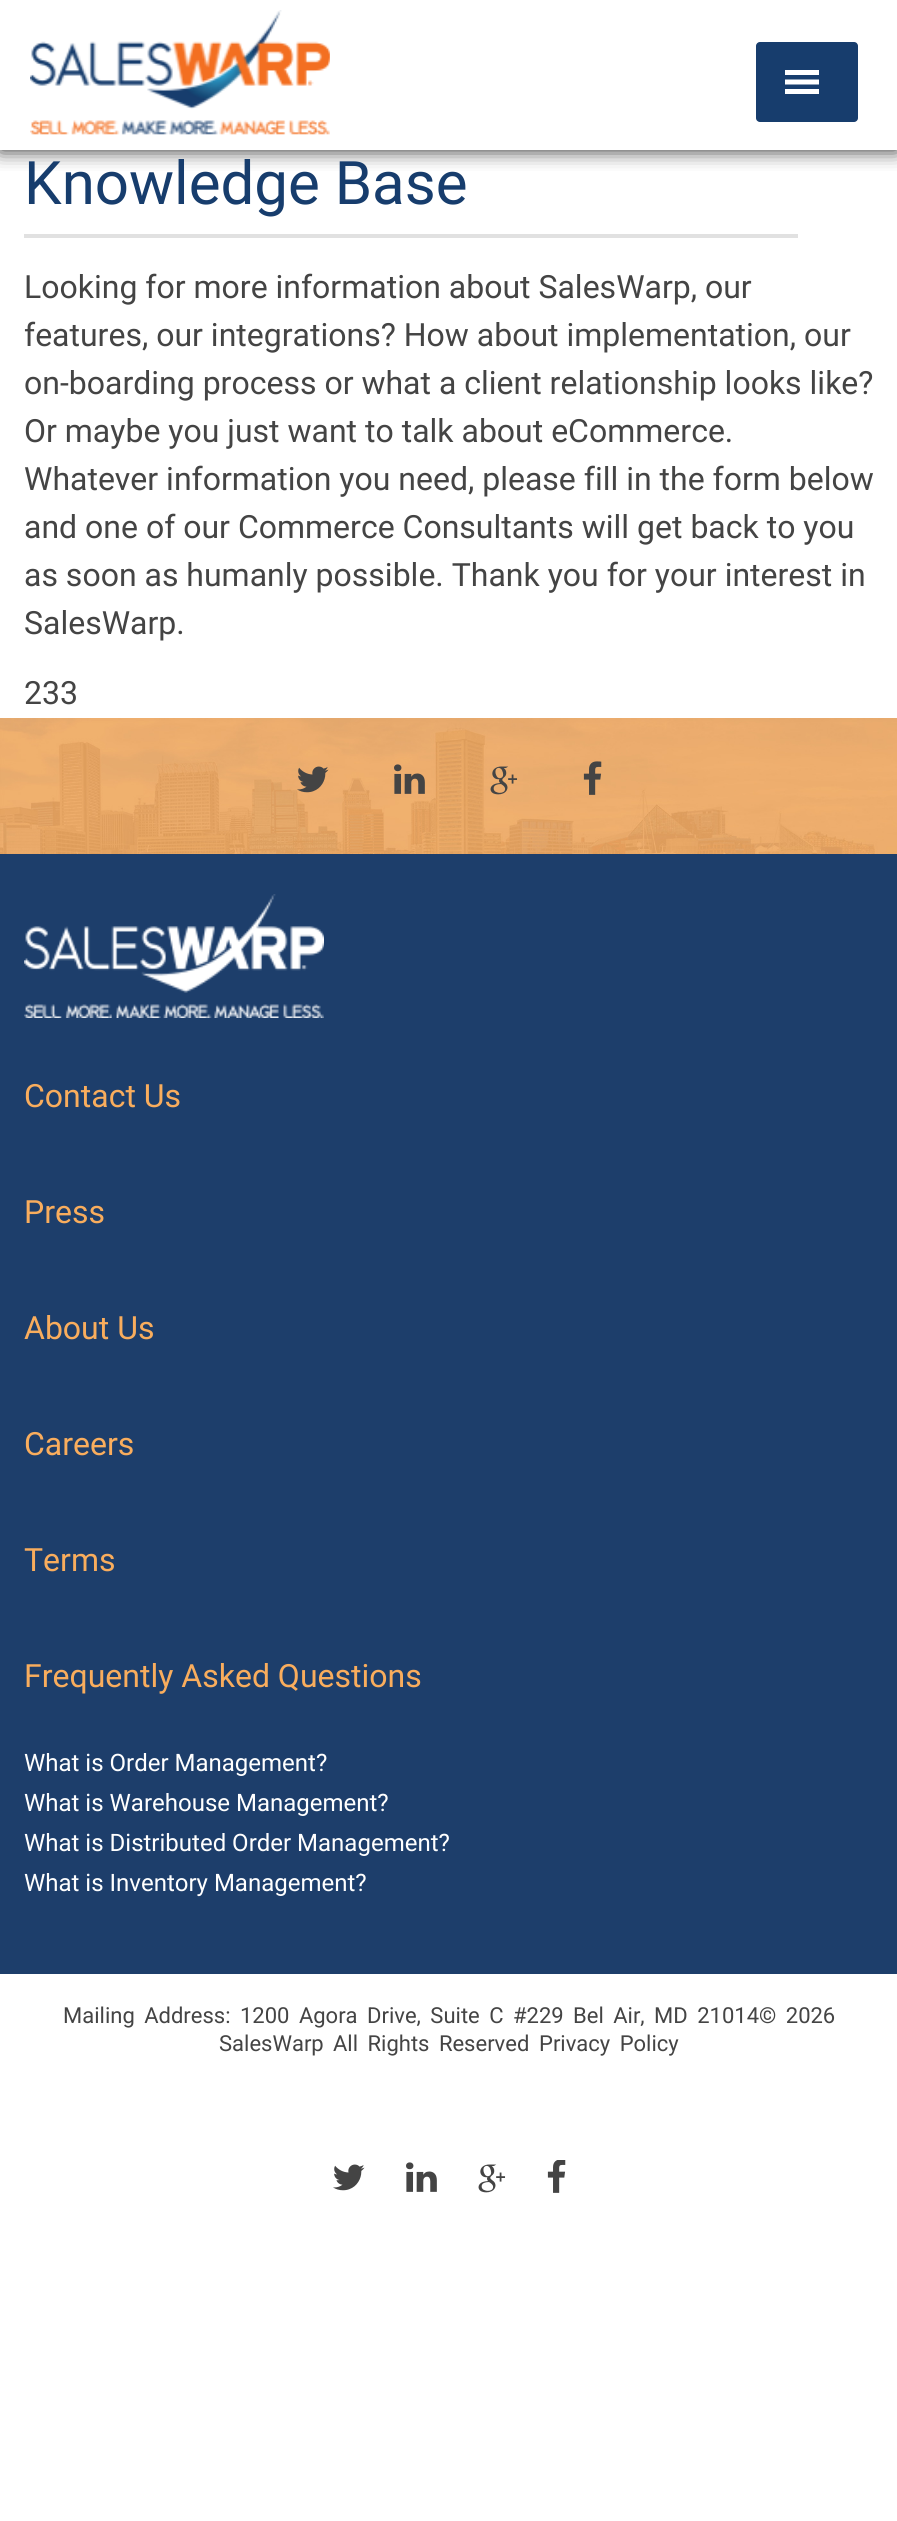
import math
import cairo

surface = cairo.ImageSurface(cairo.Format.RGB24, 897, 2521)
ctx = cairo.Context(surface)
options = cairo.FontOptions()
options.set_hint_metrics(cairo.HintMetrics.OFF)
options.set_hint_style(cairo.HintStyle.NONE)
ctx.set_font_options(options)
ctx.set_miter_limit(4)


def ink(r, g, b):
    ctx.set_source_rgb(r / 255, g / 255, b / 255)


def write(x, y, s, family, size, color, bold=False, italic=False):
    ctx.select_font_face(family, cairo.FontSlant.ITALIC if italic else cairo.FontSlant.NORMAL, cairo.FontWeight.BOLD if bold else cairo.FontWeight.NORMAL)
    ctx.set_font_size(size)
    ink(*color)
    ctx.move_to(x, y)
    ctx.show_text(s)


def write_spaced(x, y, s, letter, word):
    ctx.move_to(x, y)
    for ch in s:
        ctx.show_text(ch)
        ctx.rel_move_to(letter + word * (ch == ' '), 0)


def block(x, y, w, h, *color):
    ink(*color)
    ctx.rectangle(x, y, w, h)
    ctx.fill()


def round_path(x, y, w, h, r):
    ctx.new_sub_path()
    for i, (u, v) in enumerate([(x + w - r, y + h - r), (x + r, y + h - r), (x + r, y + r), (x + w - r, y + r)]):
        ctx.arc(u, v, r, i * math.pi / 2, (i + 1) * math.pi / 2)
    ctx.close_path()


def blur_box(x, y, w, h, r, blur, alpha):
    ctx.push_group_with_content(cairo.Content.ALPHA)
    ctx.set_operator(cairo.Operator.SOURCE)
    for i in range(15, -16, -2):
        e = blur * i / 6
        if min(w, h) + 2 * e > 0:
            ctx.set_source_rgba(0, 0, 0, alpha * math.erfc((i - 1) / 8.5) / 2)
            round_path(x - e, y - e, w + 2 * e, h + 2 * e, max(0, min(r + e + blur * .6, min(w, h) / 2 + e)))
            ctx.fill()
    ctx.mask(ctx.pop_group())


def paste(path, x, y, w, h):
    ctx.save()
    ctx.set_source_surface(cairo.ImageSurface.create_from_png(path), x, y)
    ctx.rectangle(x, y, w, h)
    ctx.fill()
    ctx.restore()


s1 = dict(family="Roboto", size=60, color=(23, 61, 109))
s2 = dict(family="Roboto", size=32, color=(68, 68, 68))
s3 = dict(family="Roboto", size=32, color=(249, 173, 93))
s4 = dict(family="Roboto", size=24, color=(255, 255, 255))
s5 = dict(family="Roboto", size=22, color=(68, 68, 68))

ink(255, 255, 255)
ctx.paint()
ctx.save()
ctx.rectangle(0, 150, 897, 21)
ctx.clip()
ink(38, 38, 38)
blur_box(0, 0, 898, 150, 0, 10, 1)
ctx.restore()
paste("pic1.png", 30, 10, 300, 125)
ink(23, 61, 109)
round_path(756, 42, 102, 80, 4)
ctx.fill()
ink(255, 255, 255)
ctx.new_path()
ctx.move_to(785, 94)
ctx.line_to(819, 94)
ctx.line_to(819, 89)
ctx.line_to(785, 89)
ctx.close_path()
ctx.move_to(785, 70)
ctx.line_to(785, 75)
ctx.line_to(819, 75)
ctx.line_to(819, 70)
ctx.close_path()
ctx.move_to(785, 84.5)
ctx.line_to(819, 84.5)
ctx.line_to(819, 79.5)
ctx.line_to(785, 79.5)
ctx.close_path()
ctx.fill()
write(24, 204, "Knowledge Base", **s1)
block(24, 234, 774, 4, 225, 225, 225)
write(24, 298, "Looking for more information about SalesWarp, our", **s2)
write(24, 346, "features, our integrations? How about implementation, our", **s2)
write(24, 394, "on-boarding process or what a client relationship looks like?", **s2)
write(24, 442, "Or maybe you just want to talk about eCommerce.", **s2)
write(24, 490, "Whatever information you need, please fill in the form below", **s2)
write(24, 538, "and one of our Commerce Consultants will get back to you", **s2)
write(24, 586, "as soon as humanly possible. Thank you for your interest in", **s2)
write(24, 634, "SalesWarp.", **s2)
write(24, 704, "233", **s2)
paste("pic2.png", 0, 718, 897, 136)
paste("pic3.png", 297, 766, 32, 27)
paste("pic4.png", 394, 764, 31, 30)
paste("pic5.png", 490, 766, 28, 29)
paste("pic6.png", 583, 761, 19, 34)
block(0, 854, 897, 1120, 29, 62, 107)
paste("pic7.png", 24, 894, 300, 124)
write(24, 1107, "Contact Us", **s3)
write(24, 1223, "Press", **s3)
write(24, 1339, "About Us", **s3)
write(24, 1455, "Careers", **s3)
write(24, 1571, "Terms", **s3)
write(24, 1687, "Frequently Asked Questions", **s3)
write(24, 1771, "What is Order Management?", **s4)
write(24, 1811, "What is Warehouse Management?", **s4)
write(24, 1851, "What is Distributed Order Management?", **s4)
write(24, 1891, "What is Inventory Management?", **s4)
ctx.set_font_size(22)
ink(68, 68, 68)
write_spaced(63, 2023, "Mailing Address: 1200 Agora Drive, Suite C #229", 0, 4)
write_spaced(573, 2023, "Bel Air, MD 21014© 2026", 0, 4)
write(219, 2051, "SalesWarp", **s5)
write_spaced(333, 2051, "All Rights Reserved", 0, 4)
write_spaced(539, 2051, "Privacy Policy", 0, 4)
paste("pic8.png", 333, 2164, 32, 27)
paste("pic9.png", 406, 2162, 31, 30)
paste("pic10.png", 478, 2164, 28, 29)
paste("pic11.png", 547, 2160, 19, 33)
surface.write_to_png("screenshot.png")
